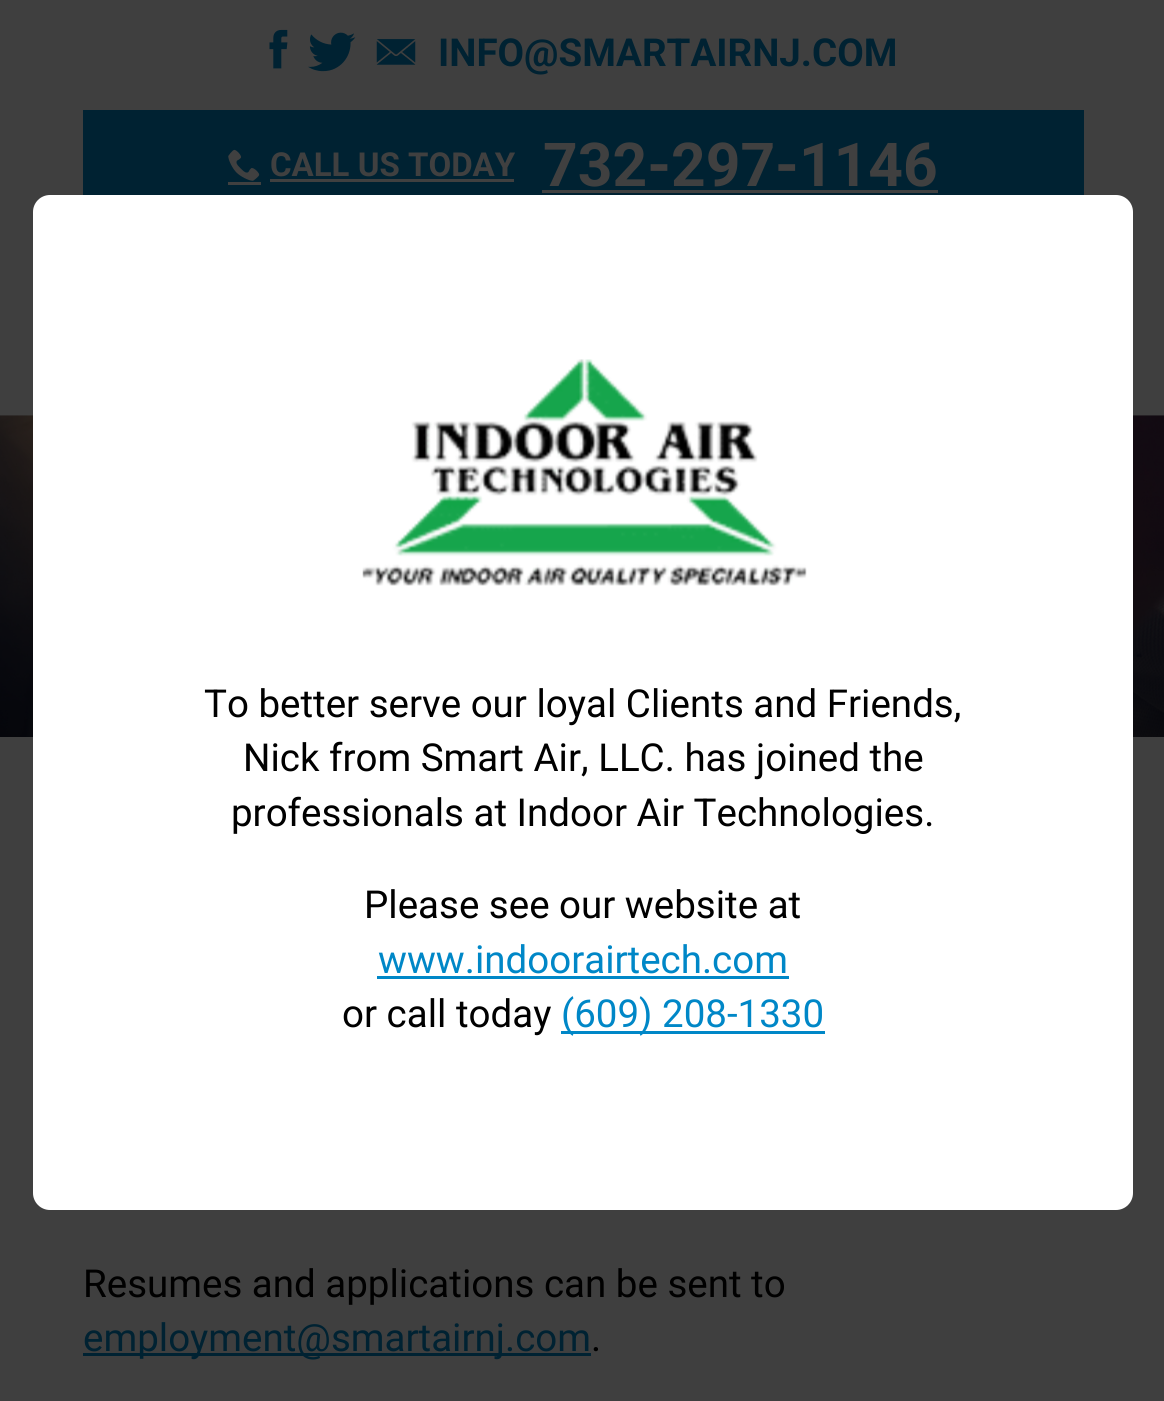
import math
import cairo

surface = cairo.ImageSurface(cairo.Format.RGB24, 1164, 1401)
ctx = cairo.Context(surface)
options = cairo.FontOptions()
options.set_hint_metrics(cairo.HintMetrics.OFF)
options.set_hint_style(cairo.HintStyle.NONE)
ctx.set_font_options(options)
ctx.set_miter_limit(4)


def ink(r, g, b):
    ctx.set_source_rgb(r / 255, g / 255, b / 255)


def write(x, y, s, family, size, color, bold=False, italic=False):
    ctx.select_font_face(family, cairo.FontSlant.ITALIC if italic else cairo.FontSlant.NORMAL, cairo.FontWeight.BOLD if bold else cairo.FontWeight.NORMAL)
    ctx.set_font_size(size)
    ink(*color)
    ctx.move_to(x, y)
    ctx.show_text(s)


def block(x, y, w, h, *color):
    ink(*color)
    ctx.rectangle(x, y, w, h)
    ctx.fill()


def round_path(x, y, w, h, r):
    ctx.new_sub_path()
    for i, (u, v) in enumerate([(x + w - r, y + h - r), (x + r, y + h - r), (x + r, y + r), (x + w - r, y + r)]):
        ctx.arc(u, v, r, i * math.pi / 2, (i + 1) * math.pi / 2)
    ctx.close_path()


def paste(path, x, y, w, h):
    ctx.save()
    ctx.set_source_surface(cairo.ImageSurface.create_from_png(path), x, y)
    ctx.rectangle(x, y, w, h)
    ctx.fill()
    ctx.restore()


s1 = dict(family="Roboto", size=38.5, color=(0, 34, 50), bold=True)
s2 = dict(family="Roboto", size=33, color=(64, 64, 64), bold=True)
s3 = dict(family="Roboto", size=60.5, color=(64, 64, 64), bold=True)
s4 = dict(family="Roboto", size=38.5, color=(0, 0, 0))
s5 = dict(family="Roboto", size=38.5, color=(0, 135, 199))
s6 = dict(family="Roboto", size=38.5, color=(0, 34, 50))

ink(63, 63, 63)
ctx.paint()
paste("pic1.png", 269, 29, 19, 40)
paste("pic2.png", 308, 32, 48, 40)
paste("pic3.png", 376, 39, 40, 26)
write(438, 66, "INFO@SMARTAIRNJ.COM", **s1)
block(83, 110, 1001, 85, 0, 34, 50)
paste("pic4.png", 228, 149, 32, 32)
block(228, 182, 33, 3, 64, 64, 64)
write(270, 176, "CALL US TODAY", **s2)
block(270, 179, 244, 3, 64, 64, 64)
write(543, 186, "732-297-1146", **s3)
block(542, 190, 396, 3, 64, 64, 64)
paste("pic6.png", 0, 415, 1164, 322)
ink(255, 255, 255)
round_path(33, 195, 1100, 1015, 17)
ctx.fill()
paste("pic5.png", 362, 359, 445, 227)
write(204, 717, "To better serve our loyal Clients and Friends,", **s4)
write(243, 771, "Nick from Smart Air, LLC. has joined the", **s4)
write(231, 826, "professionals at Indoor Air Technologies.", **s4)
write(364, 918, "Please see our website at", **s4)
write(378, 973, "www.indoorairtech.com", **s5)
block(377, 976, 412, 3, 0, 135, 199)
write(342, 1027, "or call today", **s4)
block(561, 1031, 264, 3, 0, 135, 199)
write(561, 1027, "(609) 208-1330", **s5)
write(83, 1297, "Resumes and applications can be sent to", **s4)
block(83, 1353, 508, 3, 0, 34, 50)
write(83, 1351, "employment@smartairnj.com", **s6)
write(591, 1351, ".", **s4)
surface.write_to_png("screenshot.png")
